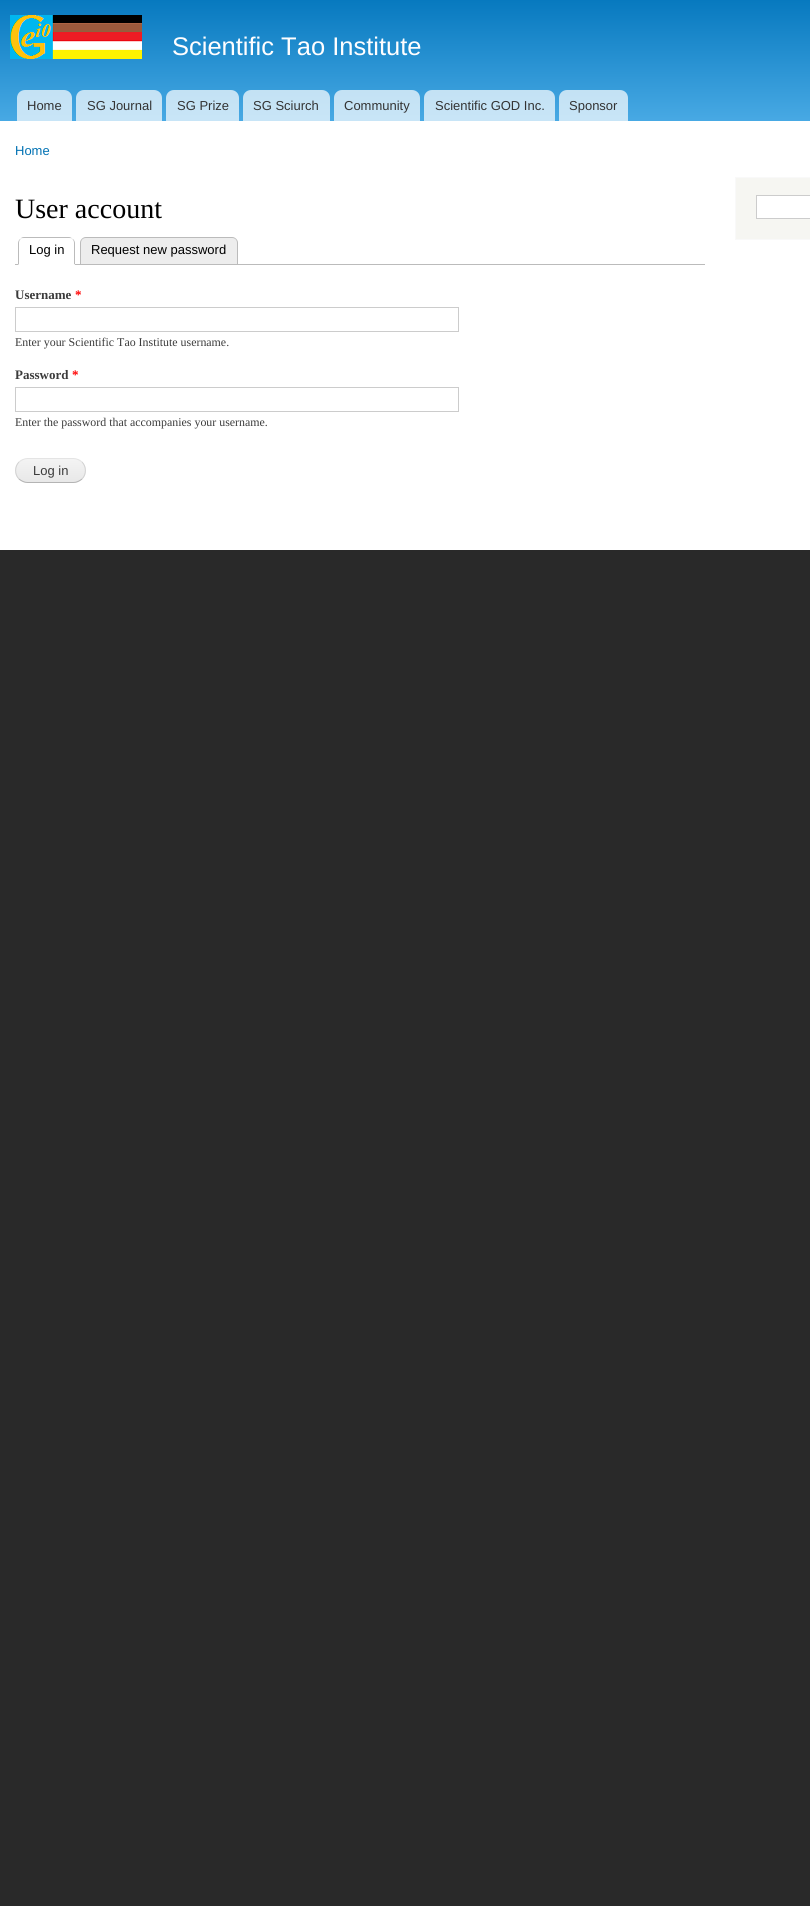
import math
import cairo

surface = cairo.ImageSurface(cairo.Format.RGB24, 810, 1906)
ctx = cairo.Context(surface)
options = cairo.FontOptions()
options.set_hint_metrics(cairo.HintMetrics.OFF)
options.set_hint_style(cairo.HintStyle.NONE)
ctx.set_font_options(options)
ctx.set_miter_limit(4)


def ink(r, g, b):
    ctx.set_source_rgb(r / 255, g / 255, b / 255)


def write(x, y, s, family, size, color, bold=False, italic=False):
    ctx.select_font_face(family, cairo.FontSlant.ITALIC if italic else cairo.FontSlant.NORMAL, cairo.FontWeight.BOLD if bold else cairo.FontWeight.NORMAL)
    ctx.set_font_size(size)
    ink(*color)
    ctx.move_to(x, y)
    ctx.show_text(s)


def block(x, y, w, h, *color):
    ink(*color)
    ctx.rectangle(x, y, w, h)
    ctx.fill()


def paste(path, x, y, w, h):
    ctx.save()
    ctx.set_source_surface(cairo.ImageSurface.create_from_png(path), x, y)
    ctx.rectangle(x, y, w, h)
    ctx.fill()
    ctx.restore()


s1 = dict(family="Liberation Sans", size=25.5, color=(255, 254, 255))
s2 = dict(family="Liberation Sans", size=13, color=(51, 51, 51))
s3 = dict(family="Liberation Sans", size=13, color=(0, 113, 179))
s4 = dict(family="Liberation Serif", size=28, color=(0, 0, 0))
s5 = dict(family="Liberation Sans", size=13, color=(0, 0, 0))
s6 = dict(family="Liberation Serif", size=13, color=(59, 59, 59), bold=True)
s7 = dict(family="Liberation Serif", size=13, color=(255, 0, 0), bold=True)
s8 = dict(family="Liberation Serif", size=11.9, color=(59, 59, 59))
s9 = dict(family="Liberation Sans", size=13, color=(59, 59, 59))

ink(41, 41, 41)
ctx.paint()
block(0, 121, 810, 429, 255, 255, 255)
gradient = cairo.LinearGradient(480, 0, 480, 121)
gradient.add_color_stop_rgba(0, 0.027, 0.475, 0.749, 1)
gradient.add_color_stop_rgba(1, 0.282, 0.663, 0.894, 1)
ctx.set_source(gradient)
ctx.rectangle(0, 0, 810, 121)
ctx.fill()
paste("pic1.png", 10, 15, 132, 44)
write(172, 55, "Scientific Tao Institute", **s1)
ctx.set_source_rgba(1, 1, 1, 0.7)
ctx.new_path()
ctx.move_to(25, 90)
ctx.line_to(64, 90)
ctx.curve_to(68.5, 90, 72, 93.5, 72, 98)
ctx.line_to(72, 121)
ctx.line_to(17, 121)
ctx.line_to(17, 98)
ctx.curve_to(17, 93.5, 20.5, 90, 25, 90)
ctx.close_path()
ctx.fill()
write(27, 110, "Home", **s2)
ctx.set_source_rgba(1, 1, 1, 0.7)
ctx.new_path()
ctx.move_to(84, 90)
ctx.line_to(154, 90)
ctx.curve_to(158.5, 90, 162, 93.5, 162, 98)
ctx.line_to(162, 121)
ctx.line_to(76, 121)
ctx.line_to(76, 98)
ctx.curve_to(76, 93.5, 79.5, 90, 84, 90)
ctx.close_path()
ctx.fill()
write(87, 110, "SG Journal", **s2)
ctx.set_source_rgba(1, 1, 1, 0.7)
ctx.new_path()
ctx.move_to(174, 90)
ctx.line_to(231, 90)
ctx.curve_to(235.5, 90, 239, 93.5, 239, 98)
ctx.line_to(239, 121)
ctx.line_to(166, 121)
ctx.line_to(166, 98)
ctx.curve_to(166, 93.5, 169.5, 90, 174, 90)
ctx.close_path()
ctx.fill()
write(177, 110, "SG Prize", **s2)
ctx.set_source_rgba(1, 1, 1, 0.7)
ctx.new_path()
ctx.move_to(251, 90)
ctx.line_to(322, 90)
ctx.curve_to(326.5, 90, 330, 93.5, 330, 98)
ctx.line_to(330, 121)
ctx.line_to(243, 121)
ctx.line_to(243, 98)
ctx.curve_to(243, 93.5, 246.5, 90, 251, 90)
ctx.close_path()
ctx.fill()
write(253, 110, "SG Sciurch", **s2)
ctx.set_source_rgba(1, 1, 1, 0.7)
ctx.new_path()
ctx.move_to(342, 90)
ctx.line_to(412, 90)
ctx.curve_to(416.5, 90, 420, 93.5, 420, 98)
ctx.line_to(420, 121)
ctx.line_to(334, 121)
ctx.line_to(334, 98)
ctx.curve_to(334, 93.5, 337.5, 90, 342, 90)
ctx.close_path()
ctx.fill()
write(344, 110, "Community", **s2)
ctx.set_source_rgba(1, 1, 1, 0.7)
ctx.new_path()
ctx.move_to(432, 90)
ctx.line_to(547, 90)
ctx.curve_to(551.5, 90, 555, 93.5, 555, 98)
ctx.line_to(555, 121)
ctx.line_to(424, 121)
ctx.line_to(424, 98)
ctx.curve_to(424, 93.5, 427.5, 90, 432, 90)
ctx.close_path()
ctx.fill()
write(435, 110, "Scientific GOD Inc.", **s2)
ctx.set_source_rgba(1, 1, 1, 0.7)
ctx.new_path()
ctx.move_to(567, 90)
ctx.line_to(620, 90)
ctx.curve_to(624.5, 90, 628, 93.5, 628, 98)
ctx.line_to(628, 121)
ctx.line_to(559, 121)
ctx.line_to(559, 98)
ctx.curve_to(559, 93.5, 562.5, 90, 567, 90)
ctx.close_path()
ctx.fill()
write(569, 110, "Sponsor", **s2)
write(15, 155, "Home", **s3)
write(15, 218, "User account", **s4)
block(15, 264, 690, 1, 187, 187, 187)
ink(255, 255, 255)
ctx.new_path()
ctx.move_to(24, 237)
ctx.line_to(69, 237)
ctx.curve_to(72.5, 237, 75, 239.5, 75, 243)
ctx.line_to(75, 265)
ctx.line_to(18, 265)
ctx.line_to(18, 243)
ctx.curve_to(18, 239.5, 20.5, 237, 24, 237)
ctx.close_path()
ctx.fill()
ink(187, 187, 187)
ctx.new_path()
ctx.move_to(24, 237)
ctx.curve_to(22, 237, 21, 238, 20, 239)
ctx.curve_to(21, 238, 22, 238, 24, 238)
ctx.line_to(69, 238)
ctx.curve_to(70, 238, 72, 238, 73, 239)
ctx.curve_to(72, 238, 70, 237, 69, 237)
ctx.close_path()
ctx.move_to(75, 265)
ctx.line_to(75, 243)
ctx.curve_to(75, 241.5, 74, 240, 73, 239)
ctx.line_to(72.5, 239.5)
ctx.curve_to(73.5, 240, 74, 241.5, 74, 243)
ctx.line_to(74, 264)
ctx.close_path()
ctx.fill()
ink(255, 255, 255)
ctx.new_path()
ctx.move_to(75, 265)
ctx.line_to(74, 264)
ctx.line_to(19, 264)
ctx.line_to(18, 265)
ctx.close_path()
ctx.fill()
ink(187, 187, 187)
ctx.new_path()
ctx.move_to(18, 265)
ctx.line_to(19, 264)
ctx.line_to(19, 243)
ctx.curve_to(19, 241.5, 19.5, 240, 20.5, 239.5)
ctx.line_to(20, 239)
ctx.curve_to(19, 240, 18, 241.5, 18, 243)
ctx.close_path()
ctx.fill()
write(29, 254, "Log in", **s5)
ink(237, 237, 237)
ctx.new_path()
ctx.move_to(86, 237)
ctx.line_to(232, 237)
ctx.curve_to(235.5, 237, 238, 239.5, 238, 243)
ctx.line_to(238, 264)
ctx.line_to(80, 264)
ctx.line_to(80, 243)
ctx.curve_to(80, 239.5, 82.5, 237, 86, 237)
ctx.close_path()
ctx.fill()
ink(187, 187, 187)
ctx.set_fill_rule(cairo.FillRule.EVEN_ODD)
ctx.new_path()
ctx.move_to(86, 237)
ctx.line_to(232, 237)
ctx.curve_to(235, 237, 238, 240, 238, 243)
ctx.line_to(238, 264)
ctx.line_to(80, 264)
ctx.line_to(80, 243)
ctx.curve_to(80, 240, 83, 237, 86, 237)
ctx.close_path()
ctx.move_to(86, 238)
ctx.line_to(232, 238)
ctx.curve_to(235, 238, 237, 240, 237, 243)
ctx.line_to(237, 264)
ctx.line_to(81, 264)
ctx.line_to(81, 243)
ctx.curve_to(81, 240, 83, 238, 86, 238)
ctx.close_path()
ctx.fill()
write(91, 254, "Request new password", **s5)
write(15, 299, "Username", **s6)
write(75, 299, "*", **s7)
ctx.rectangle(15.5, 307.5, 443, 24)
ink(204, 204, 204)
ctx.set_line_width(1)
ctx.stroke()
write(15, 346, "Enter your Scientific Tao Institute username.", **s8)
write(15, 379, "Password", **s6)
write(72, 379, "*", **s7)
ctx.rectangle(15.5, 387.5, 443, 24)
ink(204, 204, 204)
ctx.stroke()
write(15, 426, "Enter the password that accompanies your username.", **s8)
paste("pic2.png", 15, 459, 71, 24)
ctx.new_path()
ctx.move_to(19, 462)
ctx.curve_to(21.5, 460, 24.5, 458.5, 27.5, 458.5)
ctx.line_to(73.5, 458.5)
ctx.curve_to(76.5, 458.5, 79.5, 460, 82, 462)
ink(228, 228, 228)
ctx.stroke()
ctx.new_path()
ctx.move_to(82, 462)
ctx.curve_to(86.5, 466.5, 86.5, 474.5, 82, 479)
ink(210, 210, 210)
ctx.stroke()
ctx.new_path()
ctx.move_to(82, 479)
ctx.curve_to(79.5, 481, 76.5, 482.5, 73.5, 482.5)
ctx.line_to(27.5, 482.5)
ctx.curve_to(24.5, 482.5, 21.5, 481, 19, 479)
ink(180, 180, 180)
ctx.stroke()
ctx.new_path()
ctx.move_to(19, 479)
ctx.curve_to(14.5, 474.5, 14.5, 466.5, 19, 462)
ink(210, 210, 210)
ctx.stroke()
write(33, 475, "Log in", **s9)
ink(246, 246, 242)
ctx.rectangle(735.5, 177.5, 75, 62)
ctx.fill_preserve()
ink(249, 249, 249)
ctx.stroke()
ink(255, 255, 255)
ctx.rectangle(756.5, 195.5, 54, 23)
ctx.fill_preserve()
ink(204, 204, 204)
ctx.stroke()
surface.write_to_png("screenshot.png")
